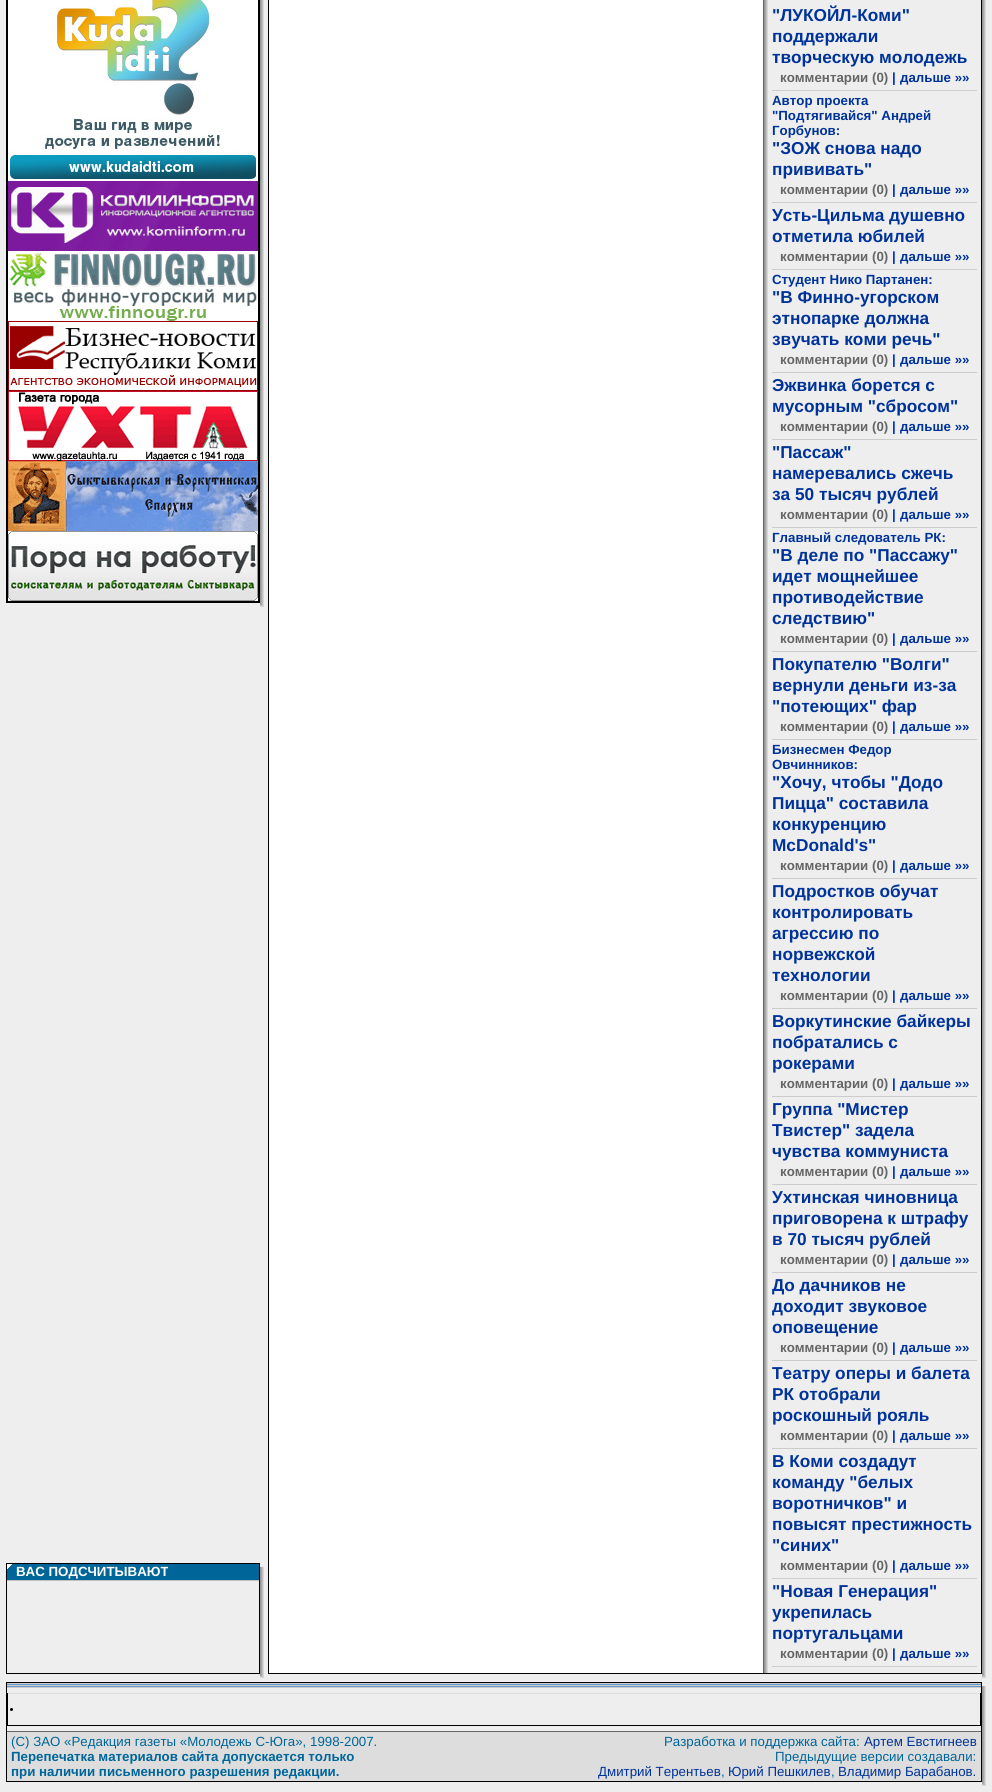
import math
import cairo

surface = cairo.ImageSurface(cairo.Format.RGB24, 992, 1792)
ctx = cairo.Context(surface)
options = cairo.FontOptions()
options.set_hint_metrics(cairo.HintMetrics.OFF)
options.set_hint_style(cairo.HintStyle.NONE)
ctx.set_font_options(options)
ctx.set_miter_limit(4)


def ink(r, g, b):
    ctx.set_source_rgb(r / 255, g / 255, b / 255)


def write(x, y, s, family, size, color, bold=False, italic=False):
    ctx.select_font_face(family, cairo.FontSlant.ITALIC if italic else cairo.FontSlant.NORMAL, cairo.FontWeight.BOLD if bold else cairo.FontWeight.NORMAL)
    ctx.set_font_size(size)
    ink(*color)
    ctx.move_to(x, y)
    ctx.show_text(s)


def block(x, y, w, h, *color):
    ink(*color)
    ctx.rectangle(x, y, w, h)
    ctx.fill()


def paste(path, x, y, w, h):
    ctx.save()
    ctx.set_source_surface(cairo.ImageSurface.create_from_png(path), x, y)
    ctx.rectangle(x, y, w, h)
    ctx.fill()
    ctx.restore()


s1 = dict(family="Liberation Sans", size=13.3, color=(255, 255, 255), bold=True)
s2 = dict(family="Liberation Sans", size=17.25, color=(0, 51, 153), bold=True)
s3 = dict(family="Liberation Sans", size=13.3, color=(102, 102, 102), bold=True)
s4 = dict(family="Liberation Sans", size=13.3, color=(0, 51, 204), bold=True)
s5 = dict(family="Liberation Sans", size=13.3, color=(0, 51, 153), bold=True)
s6 = dict(family="Liberation Sans", size=13.3, color=(0, 102, 153))
s7 = dict(family="Liberation Sans", size=13.3, color=(0, 102, 153), bold=True)
s8 = dict(family="Liberation Sans", size=13.3, color=(0, 51, 153))

ink(238, 238, 238)
ctx.paint()
block(259, 0, 1, 603, 0, 0, 0)
block(6, 602, 254, 1, 0, 0, 0)
block(6, 0, 1, 603, 0, 0, 0)
block(258, 0, 1, 602, 0, 0, 0)
block(7, 601, 252, 1, 0, 0, 0)
block(7, 0, 1, 602, 0, 0, 0)
paste("pic1.png", 8, 0, 250, 181)
paste("pic2.png", 8, 181, 250, 70)
paste("pic3.png", 8, 251, 250, 70)
paste("pic4.png", 8, 321, 250, 70)
paste("pic5.png", 8, 391, 250, 70)
paste("pic6.png", 8, 461, 250, 70)
paste("pic7.png", 8, 531, 250, 70)
paste("pic8.png", 260, 0, 4, 603)
paste("pic9.png", 260, 603, 4, 4)
block(6, 1563, 254, 1, 0, 0, 0)
block(7, 1580, 253, 1, 192, 192, 192)
block(259, 1563, 1, 111, 0, 0, 0)
block(6, 1673, 254, 1, 0, 0, 0)
block(6, 1563, 1, 111, 0, 0, 0)
block(7, 1564, 252, 16, 0, 102, 153)
paste("pic10.png", 7, 1564, 5, 5)
write(16, 1576, "ВАС ПОДСЧИТЫВАЮТ", **s1)
paste("pic11.png", 260, 1567, 4, 107)
paste("pic9.png", 260, 1674, 4, 4)
block(763, 0, 1, 1673, 102, 102, 102)
block(981, 0, 1, 1674, 0, 0, 0)
block(268, 1673, 714, 1, 0, 0, 0)
block(268, 0, 1, 1674, 0, 0, 0)
block(269, 0, 494, 1673, 255, 255, 255)
paste("pic12.png", 764, 0, 4, 1673)
write(772, 21, "\"ЛУКОЙЛ-Коми\"", **s2)
write(772, 42, "поддержали", **s2)
write(772, 63, "творческую молодежь", **s2)
write(780, 82, "комментарии (0)", **s3)
write(892, 82, "|", **s4)
write(900, 82, "дальше »»", **s5)
block(772, 90, 205, 1, 204, 204, 204)
write(772, 105, "Автор проекта", **s5)
write(772, 120, "\"Подтягивайся\" Андрей", **s5)
write(772, 135, "Горбунов:", **s5)
write(772, 154, "\"ЗОЖ снова надо", **s2)
write(772, 175, "прививать\"", **s2)
write(780, 194, "комментарии (0)", **s3)
write(892, 194, "|", **s4)
write(900, 194, "дальше »»", **s5)
block(772, 202, 205, 1, 204, 204, 204)
write(772, 221, "Усть-Цильма душевно", **s2)
write(772, 242, "отметила юбилей", **s2)
write(780, 261, "комментарии (0)", **s3)
write(892, 261, "|", **s4)
write(900, 261, "дальше »»", **s5)
block(772, 269, 205, 1, 204, 204, 204)
write(772, 284, "Студент Нико Партанен:", **s5)
write(772, 303, "\"В Финно-угорском", **s2)
write(772, 324, "этнопарке должна", **s2)
write(772, 345, "звучать коми речь\"", **s2)
write(780, 364, "комментарии (0)", **s3)
write(892, 364, "|", **s4)
write(900, 364, "дальше »»", **s5)
block(772, 372, 205, 1, 204, 204, 204)
write(772, 391, "Эжвинка борется с", **s2)
write(772, 412, "мусорным \"сбросом\"", **s2)
write(780, 431, "комментарии (0)", **s3)
write(892, 431, "|", **s4)
write(900, 431, "дальше »»", **s5)
block(772, 439, 205, 1, 204, 204, 204)
write(772, 458, "\"Пассаж\"", **s2)
write(772, 479, "намеревались сжечь", **s2)
write(772, 500, "за 50 тысяч рублей", **s2)
write(780, 519, "комментарии (0)", **s3)
write(892, 519, "|", **s4)
write(900, 519, "дальше »»", **s5)
block(772, 527, 205, 1, 204, 204, 204)
write(772, 542, "Главный следователь РК:", **s5)
write(772, 561, "\"В деле по \"Пассажу\"", **s2)
write(772, 582, "идет мощнейшее", **s2)
write(772, 603, "противодействие", **s2)
write(772, 624, "следствию\"", **s2)
write(780, 643, "комментарии (0)", **s3)
write(892, 643, "|", **s4)
write(900, 643, "дальше »»", **s5)
block(772, 651, 205, 1, 204, 204, 204)
write(772, 670, "Покупателю \"Волги\"", **s2)
write(772, 691, "вернули деньги из-за", **s2)
write(772, 712, "\"потеющих\" фар", **s2)
write(780, 731, "комментарии (0)", **s3)
write(892, 731, "|", **s4)
write(900, 731, "дальше »»", **s5)
block(772, 739, 205, 1, 204, 204, 204)
write(772, 754, "Бизнесмен Федор", **s5)
write(772, 769, "Овчинников:", **s5)
write(772, 788, "\"Хочу, чтобы \"Додо", **s2)
write(772, 809, "Пицца\" составила", **s2)
write(772, 830, "конкуренцию", **s2)
write(772, 851, "McDonald's\"", **s2)
write(780, 870, "комментарии (0)", **s3)
write(892, 870, "|", **s4)
write(900, 870, "дальше »»", **s5)
block(772, 878, 205, 1, 204, 204, 204)
write(772, 897, "Подростков обучат", **s2)
write(772, 918, "контролировать", **s2)
write(772, 939, "агрессию по", **s2)
write(772, 960, "норвежской", **s2)
write(772, 981, "технологии", **s2)
write(780, 1000, "комментарии (0)", **s3)
write(892, 1000, "|", **s4)
write(900, 1000, "дальше »»", **s5)
block(772, 1008, 205, 1, 204, 204, 204)
write(772, 1027, "Воркутинские байкеры", **s2)
write(772, 1048, "побратались с", **s2)
write(772, 1069, "рокерами", **s2)
write(780, 1088, "комментарии (0)", **s3)
write(892, 1088, "|", **s4)
write(900, 1088, "дальше »»", **s5)
block(772, 1096, 205, 1, 204, 204, 204)
write(772, 1115, "Группа \"Мистер", **s2)
write(772, 1136, "Твистер\" задела", **s2)
write(772, 1157, "чувства коммуниста", **s2)
write(780, 1176, "комментарии (0)", **s3)
write(892, 1176, "|", **s4)
write(900, 1176, "дальше »»", **s5)
block(772, 1184, 205, 1, 204, 204, 204)
write(772, 1203, "Ухтинская чиновница", **s2)
write(772, 1224, "приговорена к штрафу", **s2)
write(772, 1245, "в 70 тысяч рублей", **s2)
write(780, 1264, "комментарии (0)", **s3)
write(892, 1264, "|", **s4)
write(900, 1264, "дальше »»", **s5)
block(772, 1272, 205, 1, 204, 204, 204)
write(772, 1291, "До дачников не", **s2)
write(772, 1312, "доходит звуковое", **s2)
write(772, 1333, "оповещение", **s2)
write(780, 1352, "комментарии (0)", **s3)
write(892, 1352, "|", **s4)
write(900, 1352, "дальше »»", **s5)
block(772, 1360, 205, 1, 204, 204, 204)
write(772, 1379, "Театру оперы и балета", **s2)
write(772, 1400, "РК отобрали", **s2)
write(772, 1421, "роскошный рояль", **s2)
write(780, 1440, "комментарии (0)", **s3)
write(892, 1440, "|", **s4)
write(900, 1440, "дальше »»", **s5)
block(772, 1448, 205, 1, 204, 204, 204)
write(772, 1467, "В Коми создадут", **s2)
write(772, 1488, "команду \"белых", **s2)
write(772, 1509, "воротничков\" и", **s2)
write(772, 1530, "повысят престижность", **s2)
write(772, 1551, "\"синих\"", **s2)
write(780, 1570, "комментарии (0)", **s3)
write(892, 1570, "|", **s4)
write(900, 1570, "дальше »»", **s5)
block(772, 1578, 205, 1, 204, 204, 204)
write(772, 1597, "\"Новая Генерация\"", **s2)
write(772, 1618, "укрепилась", **s2)
write(772, 1639, "португальцами", **s2)
write(780, 1658, "комментарии (0)", **s3)
write(892, 1658, "|", **s4)
write(900, 1658, "дальше »»", **s5)
block(772, 1666, 205, 1, 204, 204, 204)
paste("pic13.png", 982, 0, 4, 1674)
paste("pic9.png", 982, 1674, 4, 4)
block(6, 1682, 976, 1, 0, 0, 0)
block(7, 1731, 975, 1, 102, 102, 102)
block(981, 1682, 1, 100, 0, 0, 0)
block(6, 1781, 976, 1, 0, 0, 0)
block(6, 1682, 1, 100, 0, 0, 0)
paste("pic14.png", 7, 1683, 321, 5)
paste("pic15.png", 328, 1683, 5, 5)
paste("pic16.png", 333, 1683, 322, 5)
paste("pic15.png", 655, 1683, 5, 5)
paste("pic14.png", 660, 1683, 321, 5)
block(7, 1693, 974, 1, 221, 221, 221)
block(980, 1693, 1, 33, 0, 0, 0)
block(7, 1725, 974, 1, 0, 0, 0)
block(7, 1693, 1, 33, 0, 0, 0)
ctx.arc(11.5, 1709.5, 1.5, 0, 2 * math.pi)
ctx.fill()
block(7, 1732, 974, 49, 221, 221, 221)
write(11, 1746, "(C) ЗАО «Редакция газеты «Молодежь С-Юга», 1998-2007.", **s6)
write(11, 1761, "Перепечатка материалов сайта допускается только", **s7)
write(11, 1776, "при наличии письменного разрешения редакции.", **s7)
write(664, 1746, "Разработка и поддержка сайта:", **s6)
write(864, 1746, "Артем Евстигнеев", **s8)
write(775, 1761, "Предыдущие версии создавали:", **s6)
write(598, 1776, "Дмитрий Терентьев", **s8)
write(721, 1776, ",", **s6)
write(728, 1776, "Юрий Пешкилев", **s8)
write(831, 1776, ",", **s6)
write(838, 1776, "Владимир Барабанов.", **s8)
paste("pic17.png", 982, 1686, 4, 96)
paste("pic9.png", 982, 1782, 4, 4)
surface.write_to_png("screenshot.png")
